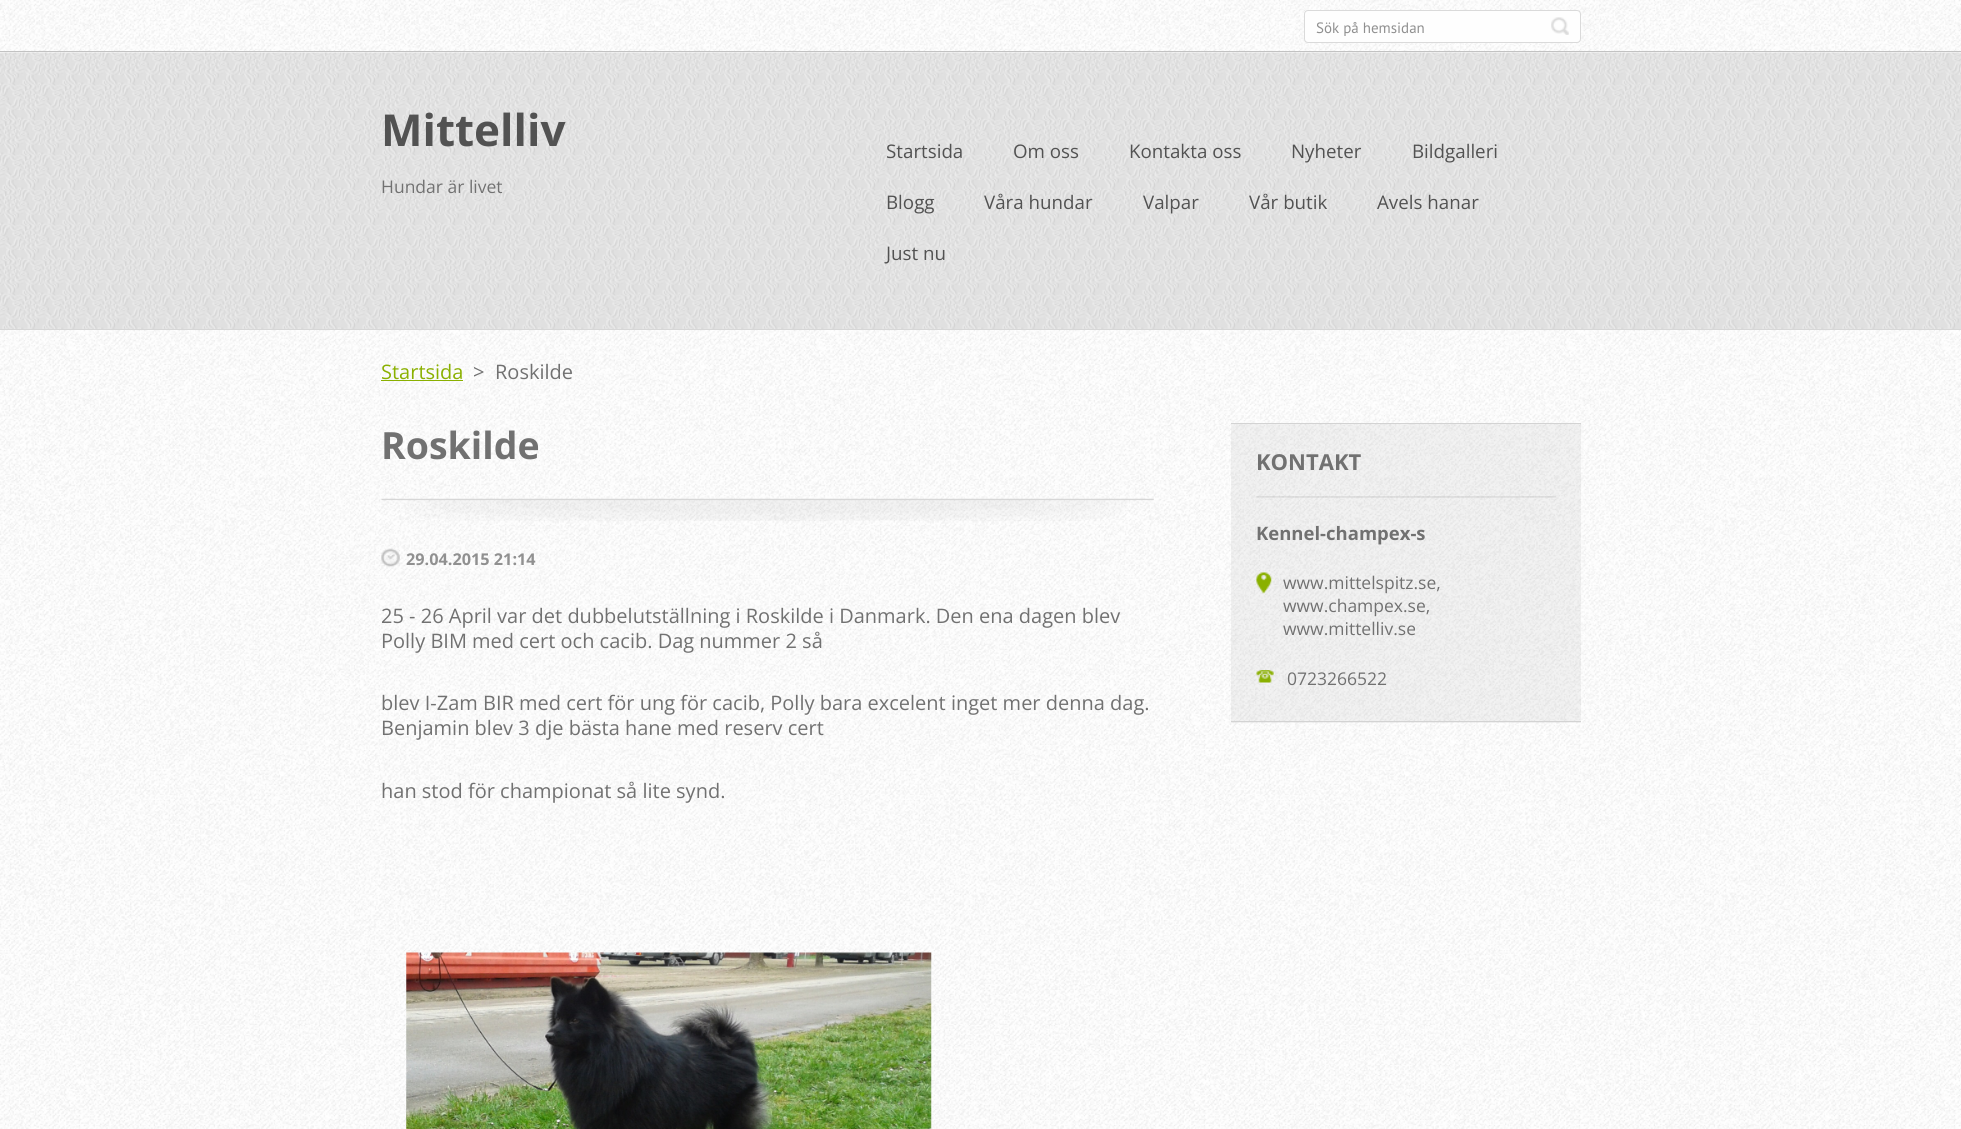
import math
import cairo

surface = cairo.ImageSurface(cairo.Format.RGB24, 1961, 1129)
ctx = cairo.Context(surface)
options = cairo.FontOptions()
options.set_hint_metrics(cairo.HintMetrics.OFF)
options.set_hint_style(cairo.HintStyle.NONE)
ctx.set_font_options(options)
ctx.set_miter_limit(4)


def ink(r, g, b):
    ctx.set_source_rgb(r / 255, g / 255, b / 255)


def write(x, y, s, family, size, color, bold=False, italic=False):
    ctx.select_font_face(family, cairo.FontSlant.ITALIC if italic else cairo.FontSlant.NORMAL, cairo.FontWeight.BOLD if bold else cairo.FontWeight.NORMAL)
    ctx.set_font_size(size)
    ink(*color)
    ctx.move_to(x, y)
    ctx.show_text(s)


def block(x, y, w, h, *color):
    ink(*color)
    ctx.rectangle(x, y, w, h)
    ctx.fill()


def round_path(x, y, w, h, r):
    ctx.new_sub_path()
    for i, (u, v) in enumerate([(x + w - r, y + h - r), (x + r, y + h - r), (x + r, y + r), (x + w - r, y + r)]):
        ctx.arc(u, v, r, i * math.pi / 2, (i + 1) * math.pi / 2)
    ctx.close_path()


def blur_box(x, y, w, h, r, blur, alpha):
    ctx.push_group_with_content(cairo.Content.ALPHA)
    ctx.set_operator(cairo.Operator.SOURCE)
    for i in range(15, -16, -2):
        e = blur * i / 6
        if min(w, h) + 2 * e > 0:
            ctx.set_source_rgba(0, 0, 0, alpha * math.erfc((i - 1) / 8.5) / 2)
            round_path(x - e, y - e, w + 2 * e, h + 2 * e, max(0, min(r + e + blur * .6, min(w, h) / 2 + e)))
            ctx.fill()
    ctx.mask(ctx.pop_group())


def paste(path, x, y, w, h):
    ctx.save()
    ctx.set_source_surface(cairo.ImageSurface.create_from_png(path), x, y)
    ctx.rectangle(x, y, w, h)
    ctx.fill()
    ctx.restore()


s1 = dict(family="PT Sans", size=15, color=(144, 144, 144))
s2 = dict(family="Open Sans", size=44, color=(82, 82, 82), bold=True)
s3 = dict(family="Open Sans", size=17.5, color=(113, 113, 113))
s4 = dict(family="Open Sans", size=18.75, color=(82, 82, 82))
s5 = dict(family="Open Sans", size=20, color=(138, 176, 0))
s6 = dict(family="Open Sans", size=20, color=(113, 113, 113))
s7 = dict(family="Open Sans", size=37.5, color=(113, 113, 113), bold=True)
s8 = dict(family="Open Sans", size=16.25, color=(144, 144, 144), bold=True)
s9 = dict(family="Open Sans", size=22, color=(113, 113, 113), bold=True)
s10 = dict(family="Open Sans", size=18.5, color=(113, 113, 113), bold=True)

ink(255, 255, 255)
ctx.paint()
paste("pic1.png", 0, 0, 1961, 1129)
ctx.save()
ctx.set_fill_rule(cairo.FillRule.EVEN_ODD)
ctx.new_path()
ctx.move_to(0, 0)
ctx.line_to(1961, 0)
ctx.line_to(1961, 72)
ctx.line_to(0, 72)
ctx.close_path()
ctx.move_to(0, 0)
ctx.line_to(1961, 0)
ctx.line_to(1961, 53)
ctx.line_to(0, 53)
ctx.close_path()
ctx.clip()
ink(0, 0, 0)
blur_box(0, 0, 1961, 53, 0, 6, 0.7)
ctx.restore()
paste("pic2.png", 0, 52, 1961, 1)
block(0, 51, 1961, 1, 194, 194, 194)
ink(254, 254, 254)
round_path(1304.5, 10.5, 276, 32, 3.5)
ctx.fill_preserve()
ink(218, 218, 218)
ctx.set_line_width(1)
ctx.stroke()
write(1316, 33, "Sök på hemsidan", **s1)
paste("pic3.png", 1551, 17, 18, 18)
paste("pic4.png", 0, 52, 1961, 277)
block(0, 329, 1961, 1, 215, 215, 215)
write(381, 146, "Mittelliv", **s2)
write(381, 193, "Hundar är livet", **s3)
write(886, 158, "Startsida", **s4)
write(1013, 158, "Om oss", **s4)
write(1129, 158, "Kontakta oss", **s4)
write(1291, 158, "Nyheter", **s4)
write(1412, 158, "Bildgalleri", **s4)
write(886, 209, "Blogg", **s4)
write(984, 209, "Våra hundar", **s4)
write(1143, 209, "Valpar", **s4)
write(1249, 209, "Vår butik", **s4)
write(1377, 209, "Avels hanar", **s4)
write(886, 260, "Just nu", **s4)
write(381, 379, "Startsida", **s5)
block(381, 380, 82, 1, 138, 176, 0)
write(473, 379, ">", **s6)
write(495, 379, "Roskilde", **s6)
paste("pic5.png", 381, 498, 773, 23)
write(381, 459, "Roskilde", **s7)
paste("pic6.png", 381, 548, 19, 19)
write(406, 565, "29.04.2015 21:14", **s8)
write(381, 623, "25 - 26 April var det dubbelutställning i Roskilde i Danmark. Den ena dagen blev", **s6)
write(381, 648, "Polly BIM med cert och cacib. Dag nummer 2 så", **s6)
write(381, 710, "blev I-Zam BIR med cert för ung för cacib, Polly bara excelent inget mer denna dag.", **s6)
write(381, 735, "Benjamin blev 3 dje bästa hane med reserv cert", **s6)
write(381, 798, "han stod för championat så lite synd.", **s6)
paste("pic7.png", 406, 952, 526, 177)
ctx.set_source_rgba(0, 0, 0, 0.05)
ctx.rectangle(1231, 424, 350, 299)
ctx.fill()
block(1231, 423, 350, 1, 211, 211, 211)
block(1231, 721, 350, 1, 211, 211, 211)
paste("pic8.png", 1256, 496, 301, 2)
write(1256, 470, "KONTAKT", **s9)
write(1256, 540, "Kennel-champex-s", **s10)
paste("pic9.png", 1256, 572, 16, 22)
write(1283, 589, "www.mittelspitz.se,", **s3)
write(1283, 612, "www.champex.se,", **s3)
write(1283, 635, "www.mittelliv.se", **s3)
paste("pic10.png", 1256, 670, 18, 13)
write(1287, 685, "0723266522", **s3)
surface.write_to_png("screenshot.png")
